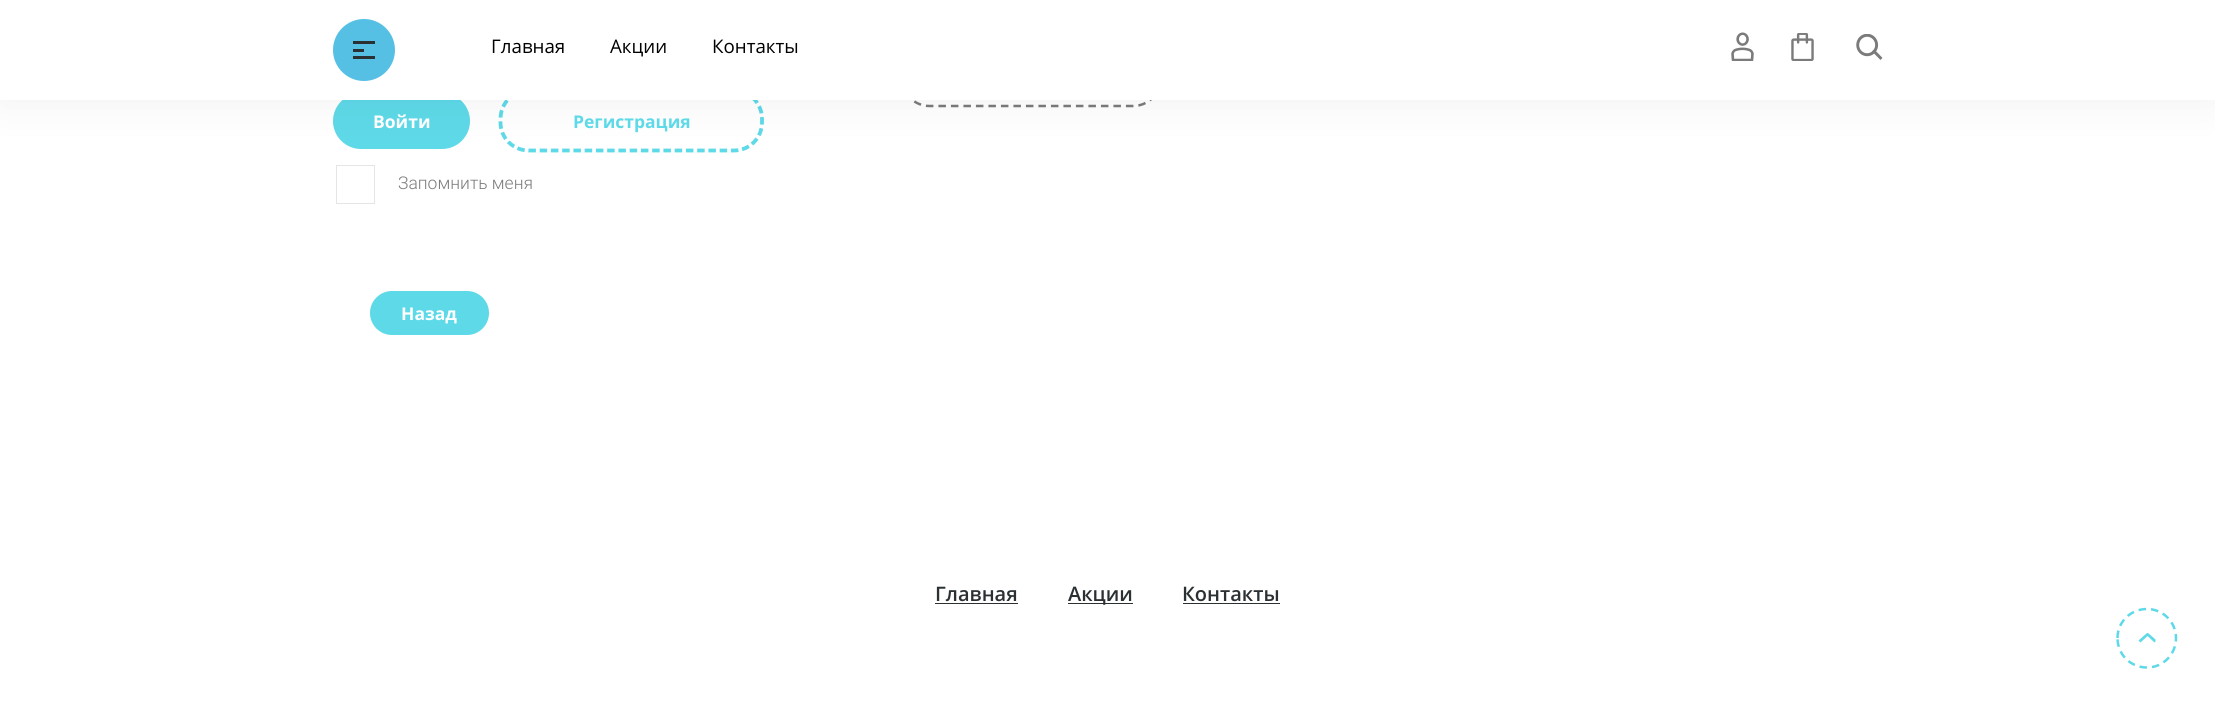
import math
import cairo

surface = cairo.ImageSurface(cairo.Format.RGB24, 2215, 706)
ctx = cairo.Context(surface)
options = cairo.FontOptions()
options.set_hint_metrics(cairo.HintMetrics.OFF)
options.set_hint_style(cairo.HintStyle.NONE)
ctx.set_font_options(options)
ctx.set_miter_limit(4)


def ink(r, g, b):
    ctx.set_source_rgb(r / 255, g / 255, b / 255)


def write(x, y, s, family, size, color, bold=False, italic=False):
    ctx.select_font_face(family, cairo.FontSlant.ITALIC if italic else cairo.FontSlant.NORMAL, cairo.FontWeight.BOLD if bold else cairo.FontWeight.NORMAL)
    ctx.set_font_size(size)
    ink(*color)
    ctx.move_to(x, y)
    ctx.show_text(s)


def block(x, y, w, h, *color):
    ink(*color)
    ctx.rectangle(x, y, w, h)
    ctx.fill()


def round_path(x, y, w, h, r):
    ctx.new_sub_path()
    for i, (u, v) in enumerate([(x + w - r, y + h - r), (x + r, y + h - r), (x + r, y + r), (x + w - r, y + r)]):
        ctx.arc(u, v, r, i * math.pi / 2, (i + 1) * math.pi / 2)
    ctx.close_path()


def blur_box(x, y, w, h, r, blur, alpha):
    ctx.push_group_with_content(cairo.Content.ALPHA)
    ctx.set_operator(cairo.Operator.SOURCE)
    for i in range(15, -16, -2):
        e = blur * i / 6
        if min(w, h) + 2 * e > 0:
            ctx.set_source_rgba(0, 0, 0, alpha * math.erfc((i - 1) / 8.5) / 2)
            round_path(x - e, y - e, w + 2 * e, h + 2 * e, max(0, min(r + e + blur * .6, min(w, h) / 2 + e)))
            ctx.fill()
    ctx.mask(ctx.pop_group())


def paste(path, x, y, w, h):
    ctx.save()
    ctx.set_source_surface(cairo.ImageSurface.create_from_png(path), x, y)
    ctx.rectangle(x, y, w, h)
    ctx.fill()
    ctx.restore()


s1 = dict(family="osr", size=18.75, color=(0, 0, 0))
s2 = dict(family="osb", size=17.5, color=(255, 255, 255), bold=True)
s3 = dict(family="osb", size=17.5, color=(94, 217, 232), bold=True)
s4 = dict(family="Roboto Light", size=17.5, color=(123, 123, 123))
s5 = dict(family="Open Sans SemiBold", size=20, color=(43, 48, 51))

ink(255, 255, 255)
ctx.paint()
ctx.new_path()
ctx.move_to(929.5, 52.5)
ctx.line_to(1133, 52.5)
ctx.curve_to(1148, 52.5, 1160, 64.5, 1160, 79.5)
ctx.curve_to(1160, 94, 1148, 106, 1133, 106)
ctx.line_to(929.5, 106)
ctx.curve_to(914.5, 106, 902.5, 94, 902.5, 79.5)
ctx.curve_to(902.5, 64.5, 914.5, 52.5, 929.5, 52.5)
ctx.close_path()
ink(123, 123, 123)
ctx.set_line_width(2.5)
ctx.set_dash([7.5, 5])
ctx.stroke()
ink(94, 217, 232)
round_path(333, 93, 137, 56, 28)
ctx.fill()
ctx.new_path()
ctx.move_to(529, 90.5)
ctx.line_to(734, 90.5)
ctx.curve_to(749.5, 90.5, 762, 103, 762, 119)
ctx.line_to(762, 122.5)
ctx.curve_to(762, 138, 749.5, 150.5, 734, 150.5)
ctx.line_to(529, 150.5)
ctx.curve_to(513, 150.5, 500.5, 138, 500.5, 122.5)
ctx.line_to(500.5, 119)
ctx.curve_to(500.5, 103, 513, 90.5, 529, 90.5)
ctx.close_path()
ctx.set_line_width(3.8)
ctx.set_dash([7.5, 3.75])
ctx.stroke()
ctx.rectangle(336.5, 165.5, 38, 38)
ink(229, 229, 229)
ctx.set_line_width(1)
ctx.set_dash([])
ctx.stroke()
ink(0, 0, 0)
blur_box(0, 6, 2215, 100, 0, 20, 0.05)
block(0, 0, 2215, 100, 255, 255, 255)
ink(85, 192, 228)
ctx.arc(364, 50, 31, 0, 2 * math.pi)
ctx.fill()
block(353, 41, 22, 3, 43, 48, 51)
block(353, 49, 11, 3, 43, 48, 51)
block(353, 56, 22, 3, 43, 48, 51)
write(491, 53, "Главная", **s1)
write(610, 53, "Акции", **s1)
write(712, 53, "Контакты", **s1)
paste("pic1.png", 1731, 32, 23, 29)
paste("pic2.png", 1791, 33, 23, 28)
paste("pic3.png", 1856, 34, 27, 26)
write(373, 128, "Войти", **s2)
write(573, 128, "Регистрация", **s3)
write(398, 189, "Запомнить меня", **s4)
ink(94, 217, 232)
round_path(370, 291, 119, 44, 22)
ctx.fill()
write(401, 320, "Назад", **s2)
write(935, 601, "Главная", **s5)
block(935, 603, 83, 1, 43, 48, 51)
block(1068, 603, 65, 1, 43, 48, 51)
write(1068, 601, "Акции", **s5)
write(1182, 601, "Контакты", **s5)
block(1183, 603, 97, 1, 43, 48, 51)
ink(94, 217, 232)
ctx.new_path()
ctx.move_to(2148, 633)
ctx.line_to(2147, 633)
ctx.line_to(2138.5, 640.5)
ctx.line_to(2140.5, 642.5)
ctx.line_to(2147.5, 636)
ctx.line_to(2154.5, 642.5)
ctx.line_to(2155.5, 641.5)
ctx.line_to(2155.5, 639.5)
ctx.close_path()
ctx.fill()
ctx.new_path()
ctx.move_to(2117.5, 638)
ctx.curve_to(2117.5, 622, 2130.5, 609, 2147, 609)
ctx.curve_to(2163, 609, 2176, 622, 2176, 638)
ctx.curve_to(2176, 654.5, 2163, 667.5, 2147, 667.5)
ctx.curve_to(2130.5, 667.5, 2117.5, 654.5, 2117.5, 638)
ctx.close_path()
ctx.set_line_width(2.5)
ctx.set_dash([7.5, 5])
ctx.stroke()
surface.write_to_png("screenshot.png")
